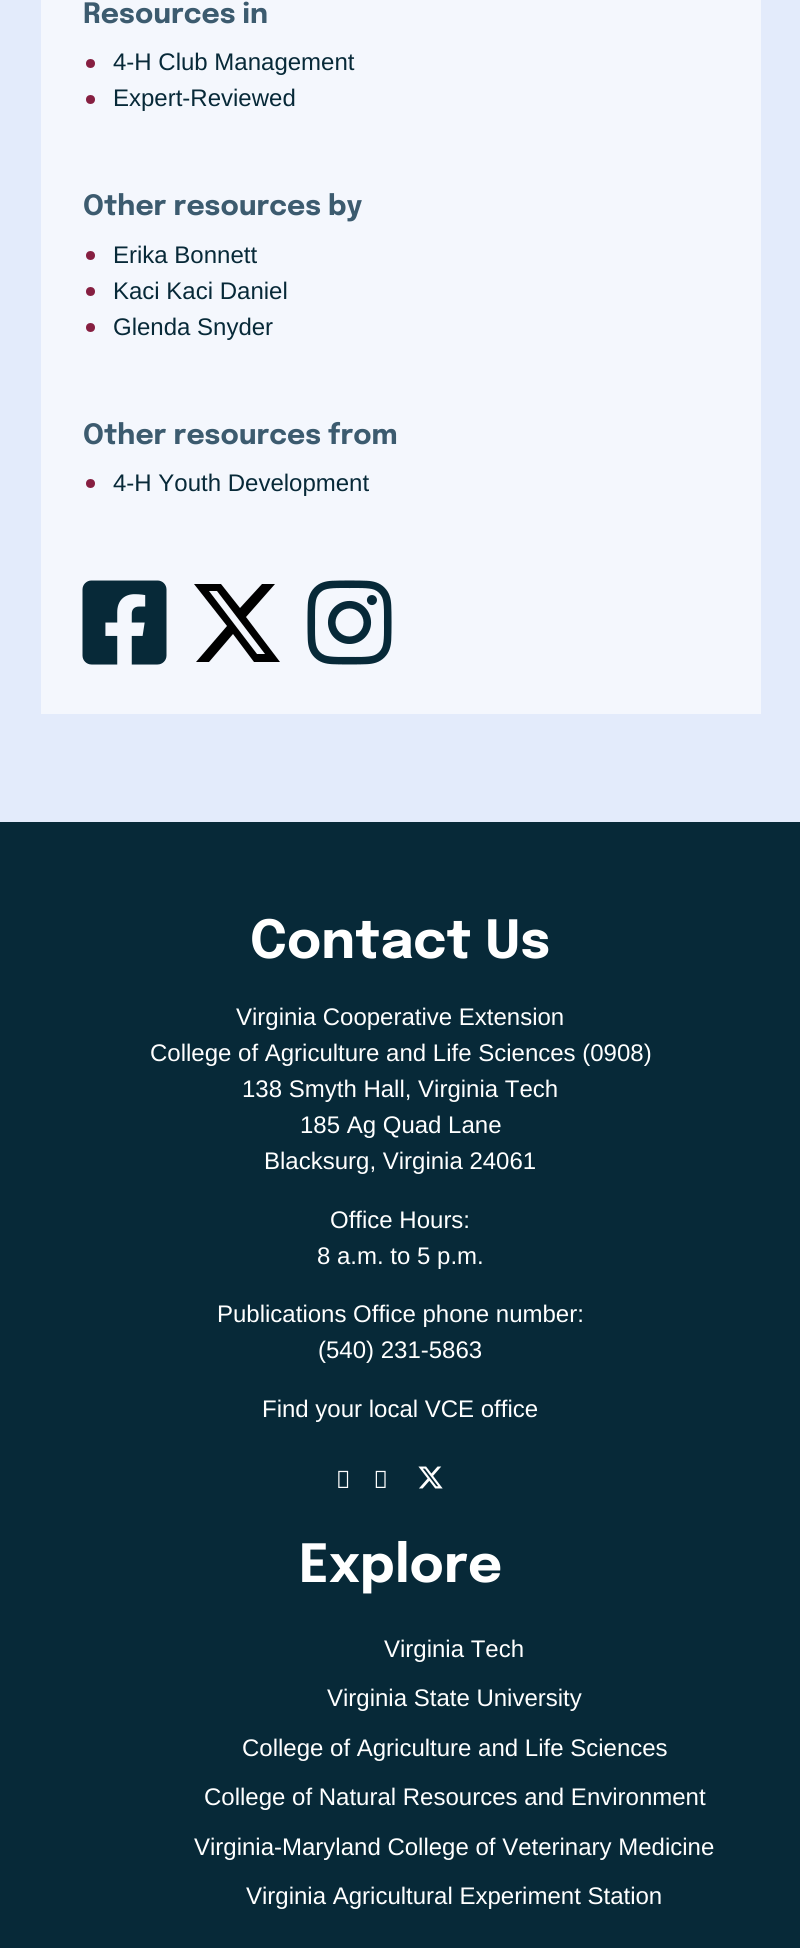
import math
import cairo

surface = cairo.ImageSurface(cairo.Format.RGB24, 800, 1948)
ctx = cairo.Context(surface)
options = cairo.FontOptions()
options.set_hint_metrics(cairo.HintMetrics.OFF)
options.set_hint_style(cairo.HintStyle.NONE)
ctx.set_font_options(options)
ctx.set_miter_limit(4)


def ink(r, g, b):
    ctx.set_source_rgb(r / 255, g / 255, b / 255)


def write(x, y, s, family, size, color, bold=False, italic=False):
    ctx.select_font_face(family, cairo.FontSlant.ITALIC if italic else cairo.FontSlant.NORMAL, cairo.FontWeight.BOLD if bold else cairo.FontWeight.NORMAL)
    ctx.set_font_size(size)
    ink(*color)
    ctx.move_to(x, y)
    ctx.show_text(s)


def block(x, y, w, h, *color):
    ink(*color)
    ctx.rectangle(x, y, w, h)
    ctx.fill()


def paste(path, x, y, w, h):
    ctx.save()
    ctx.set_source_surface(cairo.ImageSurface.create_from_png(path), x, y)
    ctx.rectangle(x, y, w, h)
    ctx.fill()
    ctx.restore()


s1 = dict(family="Epilogue", size=28, color=(60, 91, 111), bold=True)
s2 = dict(family="Liberation Sans", size=24, color=(7, 41, 56))
s3 = dict(family="Epilogue", size=52.5, color=(255, 255, 255), bold=True)
s4 = dict(family="Liberation Sans", size=24, color=(255, 255, 255))

ink(227, 235, 251)
ctx.paint()
block(41, 0, 720, 714, 244, 247, 253)
write(83, 23, "Resources in", **s1)
ink(134, 31, 65)
ctx.new_path()
ctx.arc(90.5, 63.5, 4.5, 0, 2 * math.pi)
ctx.fill()
write(113, 70, "4-H Club Management", **s2)
ink(134, 31, 65)
ctx.new_path()
ctx.arc(90.5, 99.5, 4.5, 0, 2 * math.pi)
ctx.fill()
write(113, 106, "Expert-Reviewed", **s2)
write(83, 215, "Other resources by", **s1)
ink(134, 31, 65)
ctx.new_path()
ctx.arc(90.5, 255.5, 4.5, 0, 2 * math.pi)
ctx.fill()
write(113, 263, "Erika Bonnett", **s2)
ink(134, 31, 65)
ctx.new_path()
ctx.arc(90.5, 291.5, 4.5, 0, 2 * math.pi)
ctx.fill()
write(113, 299, "Kaci Kaci Daniel", **s2)
ink(134, 31, 65)
ctx.new_path()
ctx.arc(90.5, 327.5, 4.5, 0, 2 * math.pi)
ctx.fill()
write(113, 335, "Glenda Snyder", **s2)
write(83, 444, "Other resources from", **s1)
ink(134, 31, 65)
ctx.new_path()
ctx.arc(90.5, 483.5, 4.5, 0, 2 * math.pi)
ctx.fill()
write(113, 491, "4-H Youth Development", **s2)
paste("pic1.png", 82, 580, 85, 85)
ink(0, 0, 0)
ctx.new_path()
ctx.move_to(262, 584)
ctx.line_to(275, 584)
ctx.line_to(246, 617)
ctx.line_to(280, 662)
ctx.line_to(254, 662)
ctx.line_to(233, 634)
ctx.line_to(209, 662)
ctx.line_to(196, 662)
ctx.line_to(227, 626)
ctx.line_to(194, 584)
ctx.line_to(221, 584)
ctx.line_to(240, 608)
ctx.close_path()
ctx.move_to(257, 654)
ctx.line_to(265, 654)
ctx.line_to(217, 591)
ctx.line_to(209, 591)
ctx.close_path()
ctx.fill()
paste("pic2.png", 307, 580, 85, 85)
block(0, 822, 800, 1126, 7, 41, 56)
write(250, 958, "Contact Us", **s3)
write(236, 1025, "Virginia Cooperative Extension", **s4)
write(150, 1061, "College of Agriculture and Life Sciences (0908)", **s4)
write(242, 1097, "138 Smyth Hall, Virginia Tech", **s4)
write(300, 1133, "185 Ag Quad Lane", **s4)
write(264, 1169, "Blacksurg, Virginia 24061", **s4)
write(330, 1228, "Office Hours:", **s4)
write(317, 1264, "8 a.m. to 5 p.m.", **s4)
write(217, 1322, "Publications Office phone number:", **s4)
write(318, 1358, "(540) 231-5863", **s4)
write(262, 1417, "Find your local VCE office", **s4)
paste("pic3.png", 338, 1470, 11, 18)
paste("pic4.png", 375, 1470, 11, 18)
paste("pic5.png", 418, 1466, 25, 23)
write(299, 1582, "Explore", **s3)
write(384, 1657, "Virginia Tech", **s4)
write(327, 1706, "Virginia State University", **s4)
write(242, 1756, "College of Agriculture and Life Sciences", **s4)
write(204, 1805, "College of Natural Resources and Environment", **s4)
write(194, 1855, "Virginia-Maryland College of Veterinary Medicine", **s4)
write(246, 1904, "Virginia Agricultural Experiment Station", **s4)
surface.write_to_png("screenshot.png")
